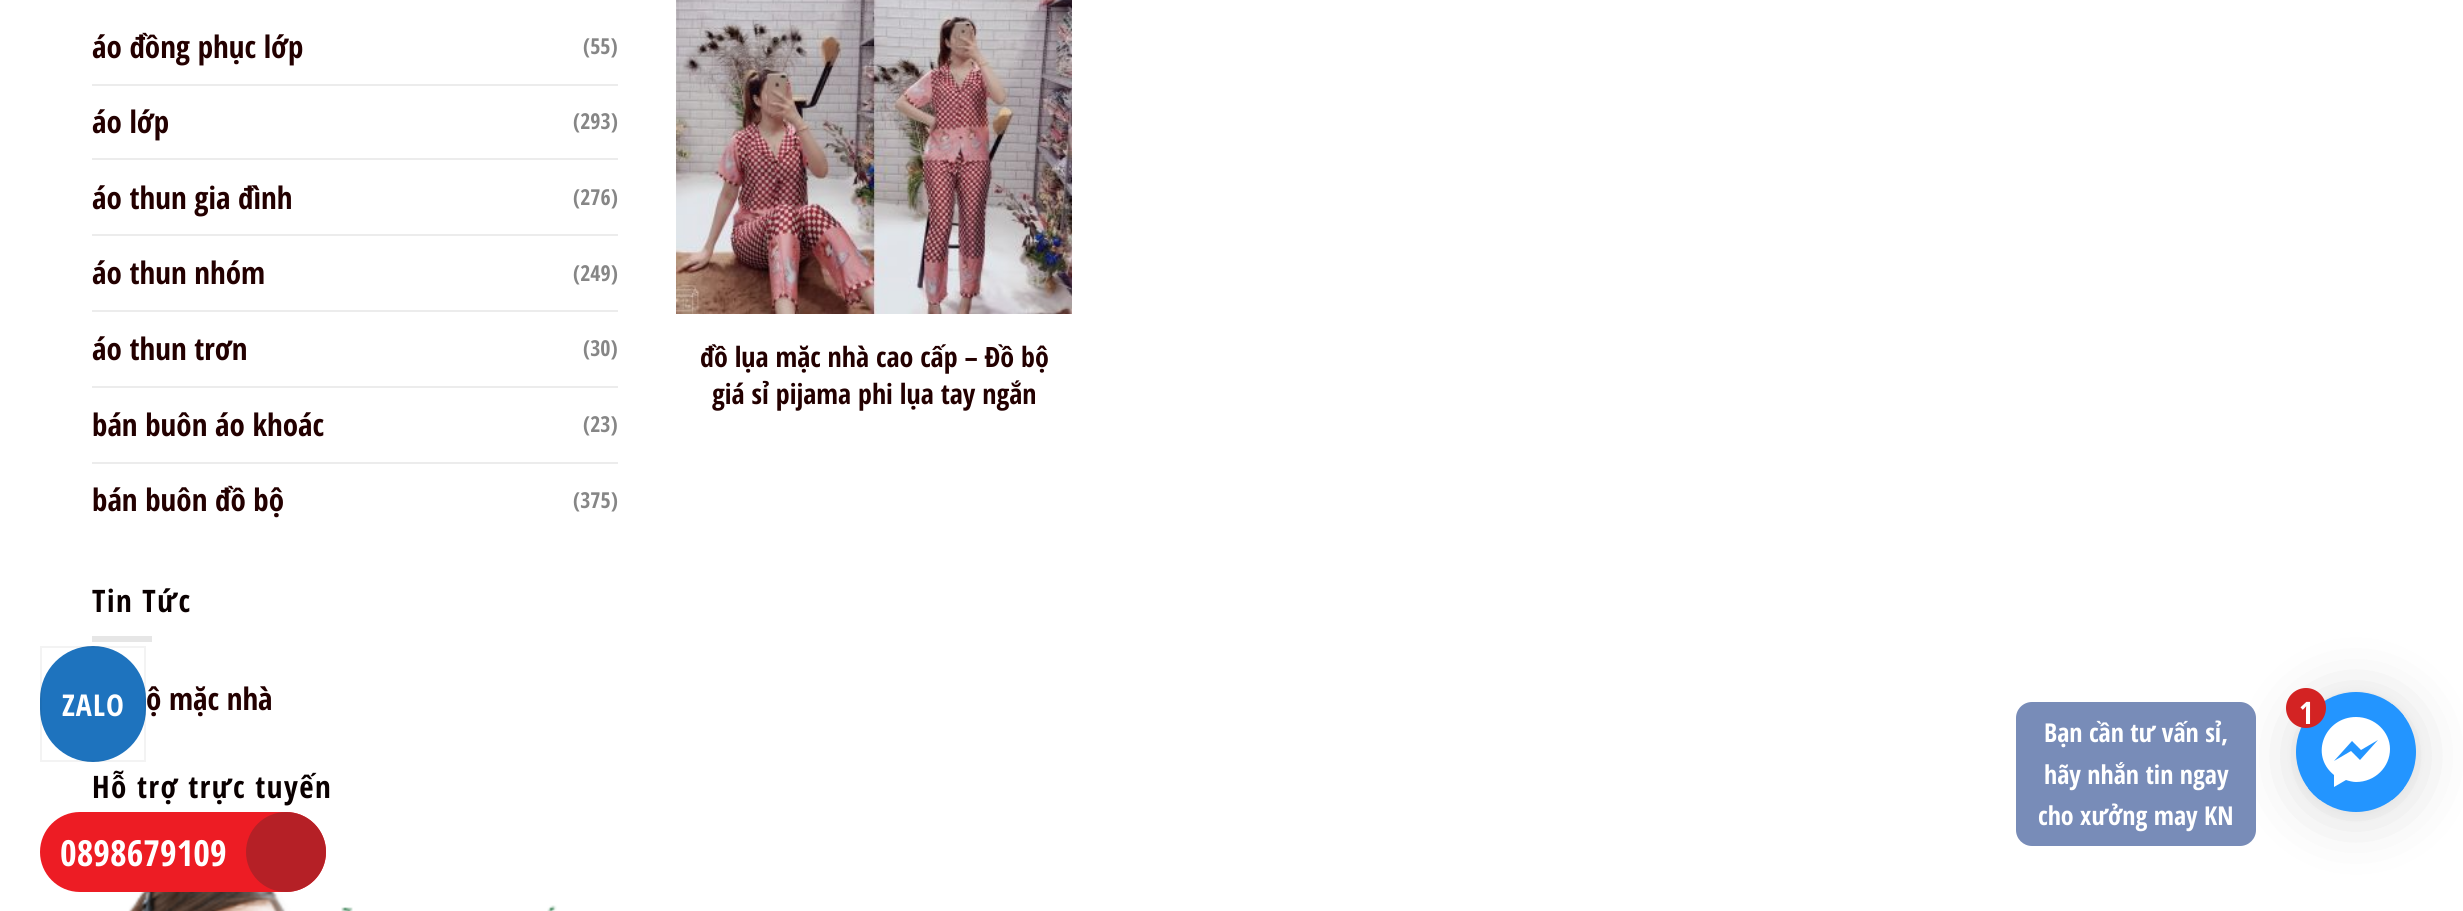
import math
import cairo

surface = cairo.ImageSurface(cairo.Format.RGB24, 2463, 911)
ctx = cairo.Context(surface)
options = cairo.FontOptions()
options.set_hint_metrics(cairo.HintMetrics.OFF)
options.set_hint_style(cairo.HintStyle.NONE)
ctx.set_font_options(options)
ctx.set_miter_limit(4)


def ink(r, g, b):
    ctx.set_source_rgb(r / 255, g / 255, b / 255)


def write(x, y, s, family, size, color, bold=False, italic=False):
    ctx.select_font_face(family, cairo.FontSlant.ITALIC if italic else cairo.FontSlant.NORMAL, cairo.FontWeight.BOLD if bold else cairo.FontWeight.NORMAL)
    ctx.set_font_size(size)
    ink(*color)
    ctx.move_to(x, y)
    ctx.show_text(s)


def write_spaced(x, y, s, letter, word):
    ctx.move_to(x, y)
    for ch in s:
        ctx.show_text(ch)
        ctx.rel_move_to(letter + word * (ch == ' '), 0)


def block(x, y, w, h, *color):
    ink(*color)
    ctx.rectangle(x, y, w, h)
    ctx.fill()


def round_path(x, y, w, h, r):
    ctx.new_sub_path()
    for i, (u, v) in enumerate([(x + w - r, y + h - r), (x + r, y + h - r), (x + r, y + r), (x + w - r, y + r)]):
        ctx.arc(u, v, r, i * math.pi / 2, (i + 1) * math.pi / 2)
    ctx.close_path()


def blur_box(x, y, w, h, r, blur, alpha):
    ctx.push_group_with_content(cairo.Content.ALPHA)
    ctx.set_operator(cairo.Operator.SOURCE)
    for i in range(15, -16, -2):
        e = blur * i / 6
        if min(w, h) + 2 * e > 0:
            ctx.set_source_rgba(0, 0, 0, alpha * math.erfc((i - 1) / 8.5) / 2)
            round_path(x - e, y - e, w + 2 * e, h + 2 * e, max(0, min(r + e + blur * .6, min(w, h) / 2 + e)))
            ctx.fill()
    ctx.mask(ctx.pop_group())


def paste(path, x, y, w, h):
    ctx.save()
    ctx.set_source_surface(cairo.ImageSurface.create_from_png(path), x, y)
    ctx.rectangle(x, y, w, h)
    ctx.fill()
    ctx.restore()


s1 = dict(family="Open Sans Condensed", size=31, color=(35, 0, 0), bold=True)
s2 = dict(family="Open Sans Condensed", size=22, color=(134, 134, 134), bold=True)
s3 = dict(family="Open Sans Condensed", size=28, color=(35, 0, 0), bold=True)
s4 = dict(family="Open Sans Condensed", size=31, color=(255, 255, 255), bold=True)
s5 = dict(family="Open Sans Condensed", size=26, color=(255, 255, 255), bold=True)
s6 = dict(family="Open Sans Condensed", size=36, color=(255, 255, 255), bold=True)

ink(255, 255, 255)
ctx.paint()
write(92, 58, "áo đồng phục lớp", **s1)
write(583, 54, "(55)", **s2)
block(92, 84, 526, 2, 236, 236, 236)
write(92, 133, "áo lớp", **s1)
write(573, 129, "(293)", **s2)
block(92, 158, 526, 2, 236, 236, 236)
write(92, 209, "áo thun gia đình", **s1)
write(573, 205, "(276)", **s2)
block(92, 234, 526, 2, 236, 236, 236)
write(92, 284, "áo thun nhóm", **s1)
write(573, 281, "(249)", **s2)
block(92, 310, 526, 2, 236, 236, 236)
write(92, 360, "áo thun trơn", **s1)
write(583, 356, "(30)", **s2)
block(92, 386, 526, 2, 236, 236, 236)
write(92, 436, "bán buôn áo khoác", **s1)
write(583, 432, "(23)", **s2)
block(92, 462, 526, 2, 236, 236, 236)
write(92, 511, "bán buôn đồ bộ", **s1)
write(573, 508, "(375)", **s2)
ctx.set_font_size(31)
ink(10, 0, 0)
write_spaced(92, 612, "Tin Tức", 1.5, 0)
block(92, 636, 60, 6, 230, 230, 230)
write(146, 710, "ộ mặc nhà", **s1)
ink(10, 0, 0)
write_spaced(92, 798, "Hỗ trợ trực tuyến", 1.5, 0)
paste("pic1.png", 128, 892, 429, 19)
paste("pic2.png", 676, 0, 396, 314)
write(700, 367, "đồ lụa mặc nhà cao cấp – Đồ bộ", **s3)
write(712, 404, "giá sỉ pijama phi lụa tay ngắn", **s3)
ink(35, 35, 35)
blur_box(2296, 696, 120, 120, 60, 32, 0.16)
blur_box(2296, 694, 120, 120, 60, 6, 0.06)
ink(35, 149, 255)
ctx.arc(2356, 752, 60, 0, 2 * math.pi)
ctx.fill()
ctx.save()
round_path(2296, 692, 120, 120, 60)
ctx.clip()
block(2308, 704, 96, 96, 35, 149, 255)
ctx.restore()
ink(255, 255, 255)
ctx.new_path()
ctx.move_to(2356, 717)
ctx.curve_to(2325, 717, 2309, 755, 2334, 775)
ctx.line_to(2334, 787)
ctx.line_to(2346, 780)
ctx.curve_to(2349, 781, 2353, 782, 2356, 782)
ctx.curve_to(2375, 782, 2390, 767, 2390, 749)
ctx.curve_to(2390, 732, 2375, 717, 2356, 717)
ctx.close_path()
ctx.move_to(2360, 760)
ctx.line_to(2351, 751)
ctx.line_to(2334, 761)
ctx.line_to(2352, 741)
ctx.line_to(2361, 750)
ctx.line_to(2378, 740)
ctx.close_path()
ctx.fill()
ink(211, 35, 35)
ctx.arc(2306, 708, 20, 0, 2 * math.pi)
ctx.fill()
write(2299, 724, "1", **s4)
ink(120, 140, 184)
round_path(2016, 702, 240, 144, 16)
ctx.fill()
write(2044, 742, "Bạn cần tư vấn sỉ,", **s5)
write(2044, 784, "hãy nhắn tin ngay", **s5)
write(2038, 825, "cho xưởng may KN", **s5)
ink(30, 115, 190)
round_path(40, 646, 106, 116, 53)
ctx.fill()
ctx.rectangle(41, 647, 104, 114)
ctx.set_source_rgba(0, 0, 0, 0.05)
ctx.stroke()
ctx.set_font_size(30)
ink(255, 255, 255)
write_spaced(62, 716, "ZALO", 1, 0)
ink(237, 28, 36)
round_path(40, 812, 286, 80, 40)
ctx.fill()
write(60, 866, "0898679109", **s6)
ink(181, 32, 38)
ctx.new_path()
ctx.arc(286, 852, 40, 0, 2 * math.pi)
ctx.fill()
surface.write_to_png("screenshot.png")
